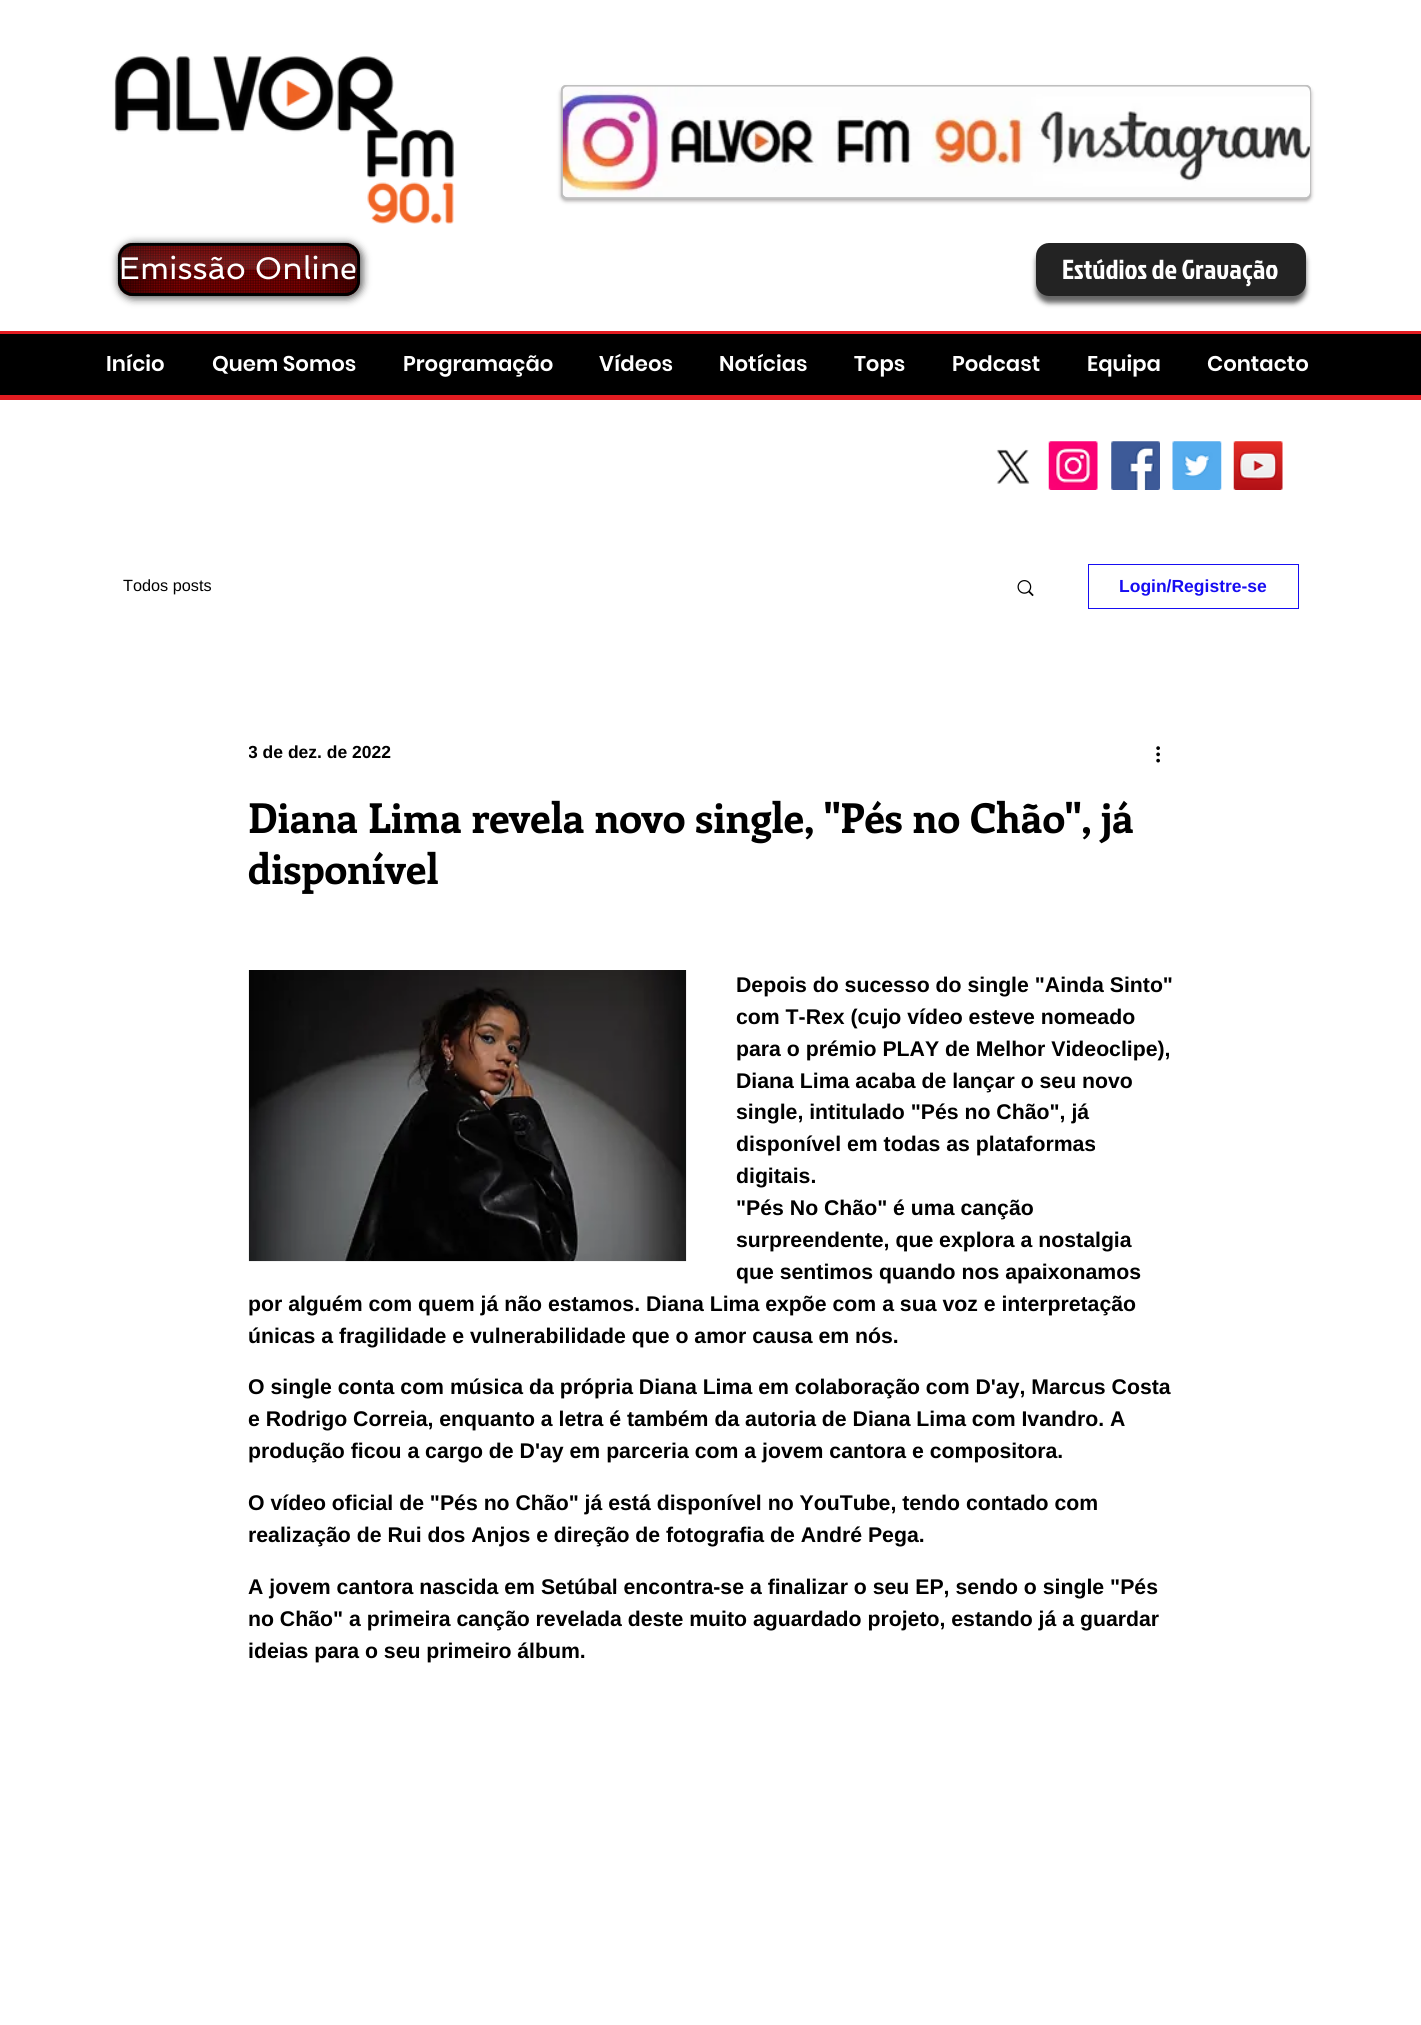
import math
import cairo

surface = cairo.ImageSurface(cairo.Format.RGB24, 1421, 2025)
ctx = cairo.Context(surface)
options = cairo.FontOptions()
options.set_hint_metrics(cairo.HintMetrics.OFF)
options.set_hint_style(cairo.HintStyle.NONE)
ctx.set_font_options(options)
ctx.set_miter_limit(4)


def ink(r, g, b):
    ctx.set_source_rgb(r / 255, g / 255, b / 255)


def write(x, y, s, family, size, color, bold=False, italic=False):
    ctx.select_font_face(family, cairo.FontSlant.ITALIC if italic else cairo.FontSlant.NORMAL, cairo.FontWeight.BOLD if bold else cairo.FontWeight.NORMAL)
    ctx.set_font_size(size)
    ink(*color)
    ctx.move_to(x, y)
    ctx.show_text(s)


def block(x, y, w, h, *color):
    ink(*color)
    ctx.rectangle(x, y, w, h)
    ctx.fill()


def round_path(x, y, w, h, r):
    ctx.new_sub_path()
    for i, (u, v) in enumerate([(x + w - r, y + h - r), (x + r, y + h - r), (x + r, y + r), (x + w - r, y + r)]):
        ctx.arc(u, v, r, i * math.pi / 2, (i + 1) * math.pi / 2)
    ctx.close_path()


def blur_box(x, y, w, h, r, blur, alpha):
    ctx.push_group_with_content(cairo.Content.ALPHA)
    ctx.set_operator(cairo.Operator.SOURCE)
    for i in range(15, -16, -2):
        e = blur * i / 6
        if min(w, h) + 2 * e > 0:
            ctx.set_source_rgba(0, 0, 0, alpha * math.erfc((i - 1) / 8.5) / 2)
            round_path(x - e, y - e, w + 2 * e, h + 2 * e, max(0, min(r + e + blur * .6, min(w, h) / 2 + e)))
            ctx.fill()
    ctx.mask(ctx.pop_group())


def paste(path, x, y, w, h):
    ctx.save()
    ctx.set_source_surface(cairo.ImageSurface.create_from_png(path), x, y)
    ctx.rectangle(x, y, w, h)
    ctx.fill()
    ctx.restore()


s1 = dict(family="Spinnaker", size=31.25, color=(255, 255, 255))
s2 = dict(family="Jockey One", size=27.5, color=(255, 255, 255))
s3 = dict(family="Poppins SemiBold", size=21.25, color=(255, 255, 255))
s4 = dict(family="Liberation Sans", size=16.25, color=(0, 0, 0))
s5 = dict(family="Liberation Sans", size=17.5, color=(23, 13, 242), bold=True)
s6 = dict(family="Liberation Sans", size=17.5, color=(0, 0, 0), bold=True)
s7 = dict(family="Enriqueta", size=41.25, color=(0, 0, 0), bold=True)
s8 = dict(family="Liberation Sans", size=21.25, color=(0, 0, 0), bold=True)

ink(255, 255, 255)
ctx.paint()
paste("pic1.png", 114, 56, 340, 168)
ink(151, 147, 147)
blur_box(561, 88, 750, 113, 5, 2, 0.8)
ink(191, 191, 191)
round_path(561, 85, 750, 114, 5)
ctx.fill()
paste("pic2.png", 562, 86, 748, 112)
round_path(561.5, 85.5, 749, 113, 4.5)
ctx.set_line_width(1)
ctx.stroke()
ink(0, 0, 0)
blur_box(118, 243, 245, 56, 16, 4, 0.6)
ink(139, 0, 0)
round_path(118, 243, 242, 53, 15)
ctx.fill()
paste("pic3.png", 117, 242, 243, 55)
round_path(119.5, 244.5, 239, 50, 13.5)
ink(0, 0, 0)
ctx.set_line_width(3)
ctx.stroke()
paste("pic5.png", 121, 246, 54, 47)
paste("pic6.png", 304, 246, 53, 47)
write(119, 279, "Emissão Online", **s1)
paste("pic4.png", 120, 245, 238, 25)
ink(0, 0, 0)
blur_box(1036, 249, 270, 54, 13, 2.5, 0.6)
ink(35, 35, 35)
round_path(1036, 243, 270, 53, 13)
ctx.fill()
write(1062, 279, "Estúdios de Gravação", **s2)
ink(226, 28, 33)
ctx.set_fill_rule(cairo.FillRule.EVEN_ODD)
ctx.new_path()
ctx.move_to(-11, 331)
ctx.line_to(-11, 400)
ctx.line_to(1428, 400)
ctx.line_to(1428, 331)
ctx.close_path()
ctx.move_to(0, 339)
ctx.line_to(0, 390)
ctx.line_to(1421, 390)
ctx.line_to(1421, 339)
ctx.close_path()
ctx.fill()
block(0, 334, 1421, 61, 0, 0, 0)
write(106, 371, "Início", **s3)
write(212, 371, "Quem Somos", **s3)
write(403, 371, "Programação", **s3)
write(599, 371, "Vídeos", **s3)
write(719, 371, "Notícias", **s3)
write(854, 371, "Tops", **s3)
write(952, 371, "Podcast", **s3)
write(1087, 371, "Equipa", **s3)
write(1207, 371, "Contacto", **s3)
paste("pic7.png", 996, 449, 34, 35)
paste("pic8.png", 1048, 441, 50, 49)
paste("pic9.png", 1111, 441, 49, 49)
paste("pic10.png", 1172, 441, 50, 49)
paste("pic11.png", 1233, 441, 50, 49)
write(123, 591, "Todos posts", **s4)
paste("pic12.png", 1017, 580, 17, 17)
ctx.rectangle(1088.5, 564.5, 210, 44)
ink(23, 13, 242)
ctx.set_line_width(1)
ctx.stroke()
write(1119, 592, "Login/Registre-se", **s5)
ctx.save()
ctx.set_fill_rule(cairo.FillRule.WINDING)
ctx.rectangle(249, 740, 142, 26)
ctx.clip()
write(248, 758, "3 de dez. de 2022", **s6)
ctx.restore()
paste("pic13.png", 1156, 746, 4, 17)
write(248, 833, "Diana Lima revela novo single, ''Pés no Chão'', já", **s7)
write(248, 884, "disponível", **s7)
paste("pic14.png", 248, 970, 439, 292)
write(736, 992, "Depois do sucesso do single \"Ainda Sinto\"", **s8)
write(736, 1024, "com T-Rex (cujo vídeo esteve nomeado", **s8)
write(736, 1056, "para o prémio PLAY de Melhor Videoclipe),", **s8)
write(736, 1088, "Diana Lima acaba de lançar o seu novo", **s8)
write(736, 1119, "single, intitulado \"Pés no Chão\", já", **s8)
write(736, 1151, "disponível em todas as plataformas", **s8)
write(736, 1183, "digitais.", **s8)
write(736, 1215, "\"Pés No Chão\" é uma canção", **s8)
write(736, 1247, "surpreendente, que explora a nostalgia", **s8)
write(736, 1279, "que sentimos quando nos apaixonamos", **s8)
write(248, 1311, "por alguém com quem já não estamos. Diana Lima expõe com a sua voz e interpretação", **s8)
write(248, 1343, "únicas a fragilidade e vulnerabilidade que o amor causa em nós.", **s8)
write(248, 1394, "O single conta com música da própria Diana Lima em colaboração com D'ay, Marcus Costa", **s8)
write(248, 1426, "e Rodrigo Correia, enquanto a letra é também da autoria de Diana Lima com Ivandro. A", **s8)
write(248, 1458, "produção ficou a cargo de D'ay em parceria com a jovem cantora e compositora.", **s8)
write(248, 1510, "O vídeo oficial de \"Pés no Chão\" já está disponível no YouTube, tendo contado com", **s8)
write(248, 1542, "realização de Rui dos Anjos e direção de fotografia de André Pega.", **s8)
write(248, 1594, "A jovem cantora nascida em Setúbal encontra-se a finalizar o seu EP, sendo o single \"Pés", **s8)
write(248, 1626, "no Chão\" a primeira canção revelada deste muito aguardado projeto, estando já a guardar", **s8)
write(248, 1658, "ideias para o seu primeiro álbum.", **s8)
surface.write_to_png("screenshot.png")
